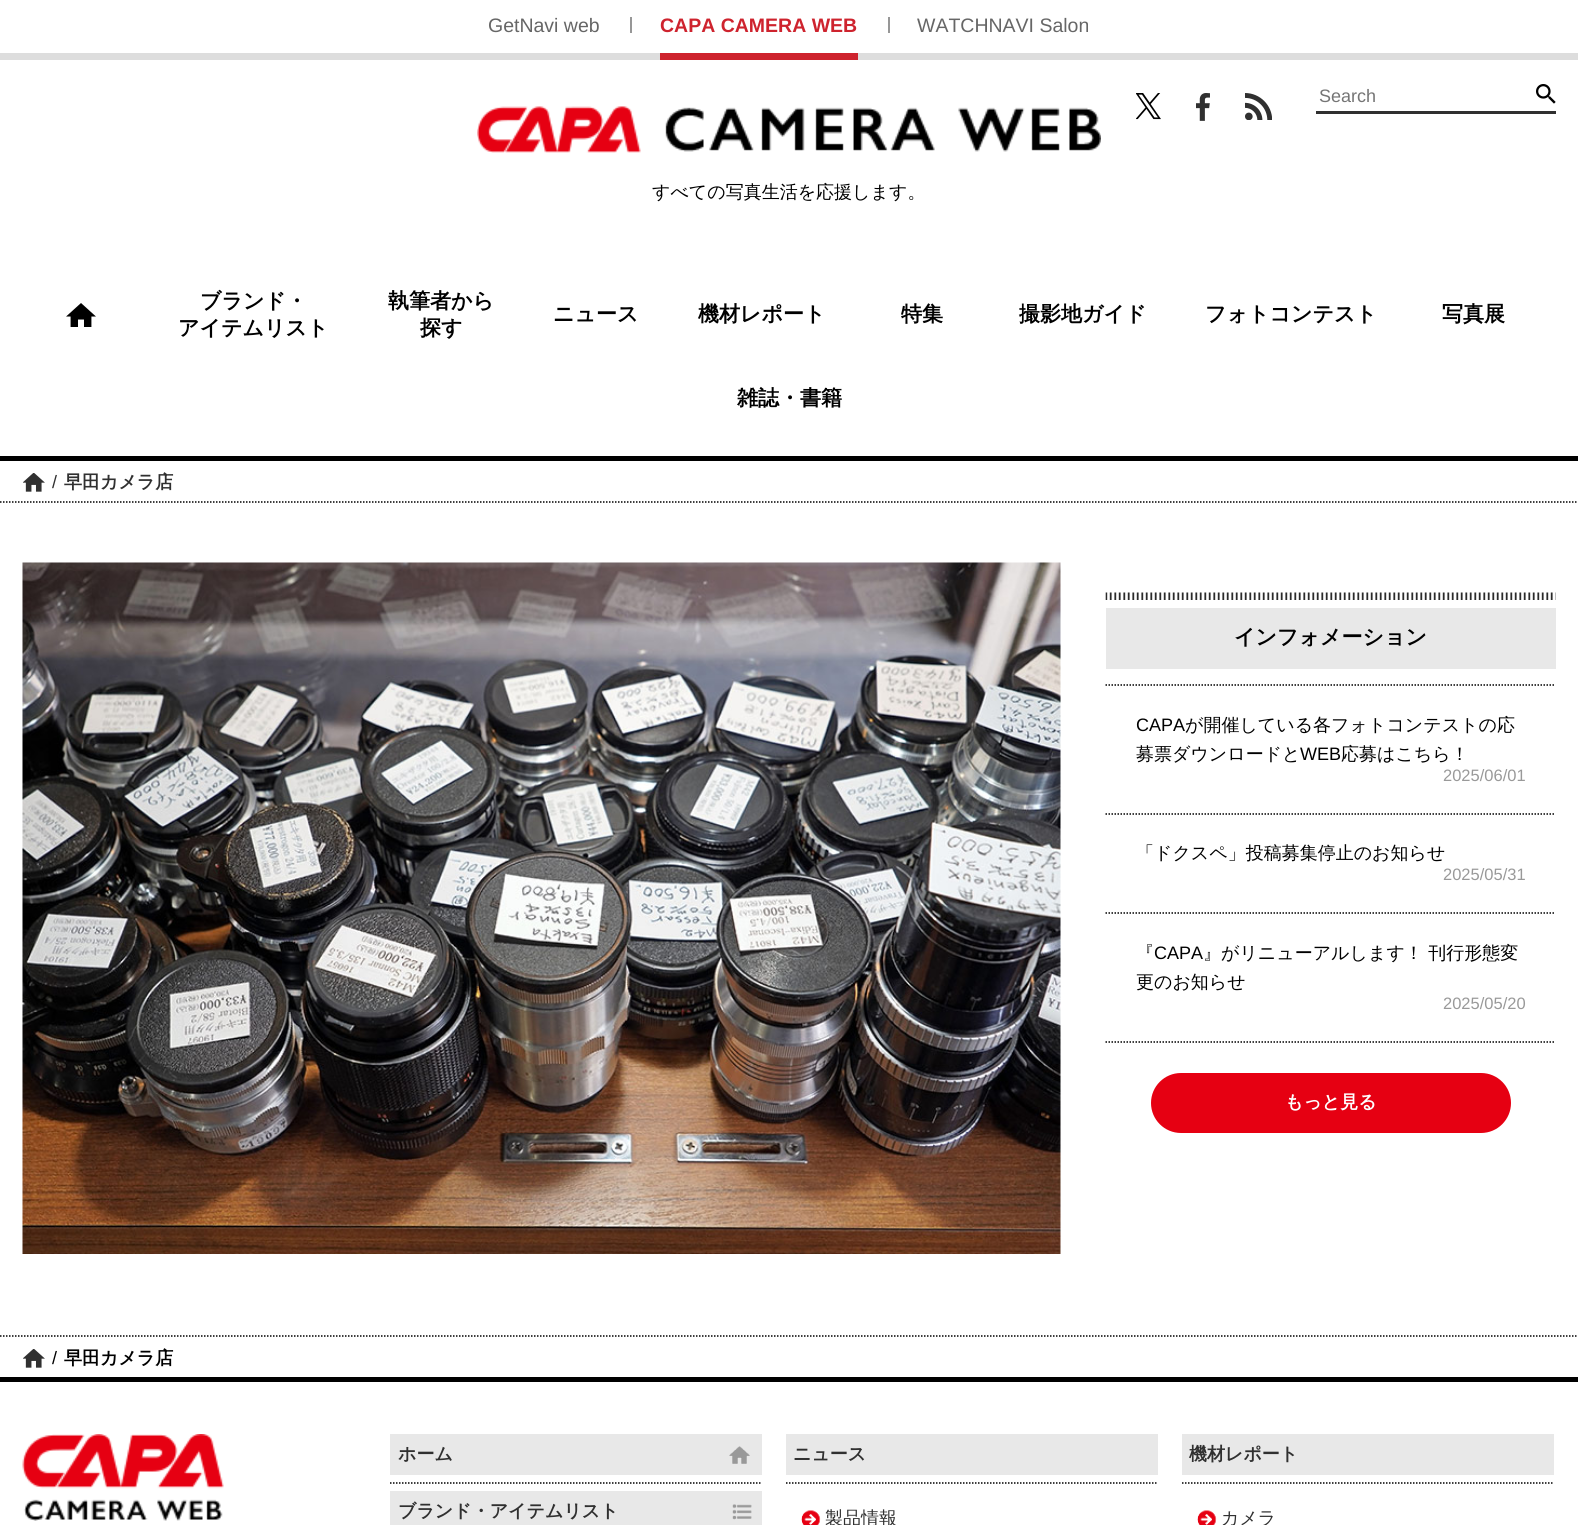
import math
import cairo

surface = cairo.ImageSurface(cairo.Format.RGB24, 1578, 1525)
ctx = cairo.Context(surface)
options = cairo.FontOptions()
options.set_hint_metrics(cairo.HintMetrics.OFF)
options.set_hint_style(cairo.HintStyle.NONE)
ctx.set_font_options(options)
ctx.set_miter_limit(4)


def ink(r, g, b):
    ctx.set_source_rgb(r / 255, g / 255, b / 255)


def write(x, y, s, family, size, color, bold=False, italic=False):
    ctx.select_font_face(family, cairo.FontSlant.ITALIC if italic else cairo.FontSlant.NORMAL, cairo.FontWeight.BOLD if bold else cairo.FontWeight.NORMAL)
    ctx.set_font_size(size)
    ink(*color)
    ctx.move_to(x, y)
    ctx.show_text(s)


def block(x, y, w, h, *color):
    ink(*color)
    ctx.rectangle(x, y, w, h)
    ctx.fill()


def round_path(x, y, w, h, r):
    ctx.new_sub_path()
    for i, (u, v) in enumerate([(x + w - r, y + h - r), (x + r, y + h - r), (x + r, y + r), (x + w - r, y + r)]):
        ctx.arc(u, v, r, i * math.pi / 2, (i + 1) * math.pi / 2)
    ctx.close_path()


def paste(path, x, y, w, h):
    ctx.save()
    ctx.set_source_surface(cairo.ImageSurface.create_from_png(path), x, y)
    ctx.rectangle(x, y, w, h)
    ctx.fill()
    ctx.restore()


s1 = dict(family="Liberation Sans", size=19.5, color=(102, 102, 102))
s2 = dict(family="Liberation Sans", size=19.5, color=(206, 35, 46), bold=True)
s3 = dict(family="Liberation Sans", size=18, color=(117, 117, 117))
s4 = dict(family="WenQuanYi Zen Hei Medium", size=18, color=(0, 0, 0))
s5 = dict(family="WenQuanYi Zen Hei", size=21, color=(0, 0, 0), bold=True)
s6 = dict(family="Liberation Sans", size=18, color=(48, 48, 48))
s7 = dict(family="WenQuanYi Zen Hei", size=18, color=(48, 48, 48), bold=True)
s8 = dict(family="Liberation Sans", size=18, color=(0, 0, 0))
s9 = dict(family="Liberation Sans", size=16.5, color=(153, 153, 153))
s10 = dict(family="WenQuanYi Zen Hei", size=18, color=(255, 255, 255), bold=True)
s11 = dict(family="WenQuanYi Zen Hei", size=18, color=(0, 0, 0), bold=True)
s12 = dict(family="WenQuanYi Zen Hei Medium", size=18, color=(48, 48, 48))

ink(255, 255, 255)
ctx.paint()
block(0, 53, 1578, 7, 221, 221, 221)
write(488, 32, "GetNavi web", **s1)
block(630, 17, 2, 16, 151, 151, 151)
write(660, 32, "CAPA CAMERA WEB", **s2)
block(660, 53, 198, 7, 206, 35, 46)
block(888, 17, 2, 16, 151, 151, 151)
write(917, 32, "WATCHNAVI Salon", **s1)
paste("pic1.png", 1136, 93, 25, 27)
paste("pic2.png", 1196, 93, 14, 28)
paste("pic3.png", 1245, 93, 27, 27)
block(1316, 111, 240, 3, 48, 48, 48)
write(1319, 102, "Search", **s3)
paste("pic4.png", 1536, 84, 20, 20)
paste("pic5.png", 477, 106, 624, 47)
write(652, 198, "すべての写真生活を応援します。", **s4)
block(0, 456, 1578, 5, 0, 0, 0)
paste("pic6.png", 66, 303, 30, 24)
write(200, 308, "ブランド・", **s5)
write(178, 335, "アイテムリスト", **s5)
write(388, 308, "執筆者から", **s5)
write(420, 335, "探す", **s5)
write(553, 321, "ニュース", **s5)
write(698, 321, "機材レポート", **s5)
write(901, 321, "特集", **s5)
write(1019, 321, "撮影地ガイド", **s5)
write(1205, 321, "フォトコンテスト", **s5)
write(1442, 321, "写真展", **s5)
write(737, 405, "雑誌・書籍", **s5)
ctx.new_path()
ctx.move_to(0, 502)
ctx.line_to(1578, 502)
ctx.set_line_width(1.5)
ctx.set_dash([1.5, 1.5])
ctx.stroke()
paste("pic7.png", 23, 473, 22, 19)
write(52, 488, "/", **s6)
write(64, 488, "早田カメラ店", **s7)
paste("pic8.png", 22, 562, 1039, 692)
paste("pic9.png", 1105, 592, 451, 8)
block(1106, 608, 450, 61, 232, 232, 232)
write(1234, 644, "インフォメーション", **s5)
ctx.new_path()
ctx.move_to(1105.5, 685)
ctx.line_to(1555.5, 685)
ctx.stroke()
ctx.new_path()
ctx.move_to(1105.5, 814)
ctx.line_to(1555.5, 814)
ctx.stroke()
write(1136, 731, "CAPA", **s8)
write(1185, 731, "が開催している各フォトコンテストの応", **s4)
write(1136, 760, "募票ダウンロードと", **s4)
write(1300, 760, "WEB", **s8)
write(1341, 760, "応募はこちら！", **s4)
write(1443, 781, "2025/06/01", **s9)
ctx.new_path()
ctx.move_to(1105.5, 913)
ctx.line_to(1555.5, 913)
ink(0, 0, 0)
ctx.stroke()
write(1136, 859, "「ドクスペ」投稿募集停止のお知らせ", **s4)
write(1443, 880, "2025/05/31", **s9)
ctx.new_path()
ctx.move_to(1105.5, 1042)
ctx.line_to(1555.5, 1042)
ink(0, 0, 0)
ctx.stroke()
write(1136, 959, "『", **s4)
write(1154, 959, "CAPA", **s8)
write(1203, 959, "』がリニューアルします！ 刊行形態変", **s4)
write(1136, 988, "更のお知らせ", **s4)
write(1443, 1009, "2025/05/20", **s9)
ink(230, 0, 18)
round_path(1151, 1073, 360, 60, 30)
ctx.fill()
write(1285, 1108, "もっと見る", **s10)
ctx.new_path()
ctx.move_to(0, 1336)
ctx.line_to(1578, 1336)
ink(0, 0, 0)
ctx.stroke()
paste("pic7.png", 23, 1349, 22, 19)
write(52, 1364, "/", **s8)
write(64, 1364, "早田カメラ店", **s11)
block(0, 1377, 1578, 5, 0, 0, 0)
paste("pic10.png", 22, 1434, 202, 87)
ctx.new_path()
ctx.move_to(390, 1483)
ctx.line_to(762, 1483)
ctx.stroke()
block(390, 1434, 372, 41, 232, 232, 232)
write(398, 1460, "ホーム", **s7)
paste("pic11.png", 729, 1446, 21, 18)
block(390, 1491, 372, 34, 232, 232, 232)
write(398, 1517, "ブランド・アイテムリスト", **s7)
paste("pic12.png", 732, 1504, 20, 16)
ctx.new_path()
ctx.move_to(786, 1483)
ctx.line_to(1158, 1483)
ink(0, 0, 0)
ctx.stroke()
block(786, 1434, 372, 41, 232, 232, 232)
write(793, 1460, "ニュース", **s7)
paste("pic13.png", 801, 1510, 20, 15)
write(825, 1524, "製品情報", **s12)
ctx.new_path()
ctx.move_to(1182, 1483)
ctx.line_to(1554, 1483)
ink(0, 0, 0)
ctx.stroke()
block(1182, 1434, 372, 41, 232, 232, 232)
write(1189, 1460, "機材レポート", **s7)
paste("pic13.png", 1197, 1510, 20, 15)
write(1221, 1524, "カメラ", **s12)
surface.write_to_png("screenshot.png")
